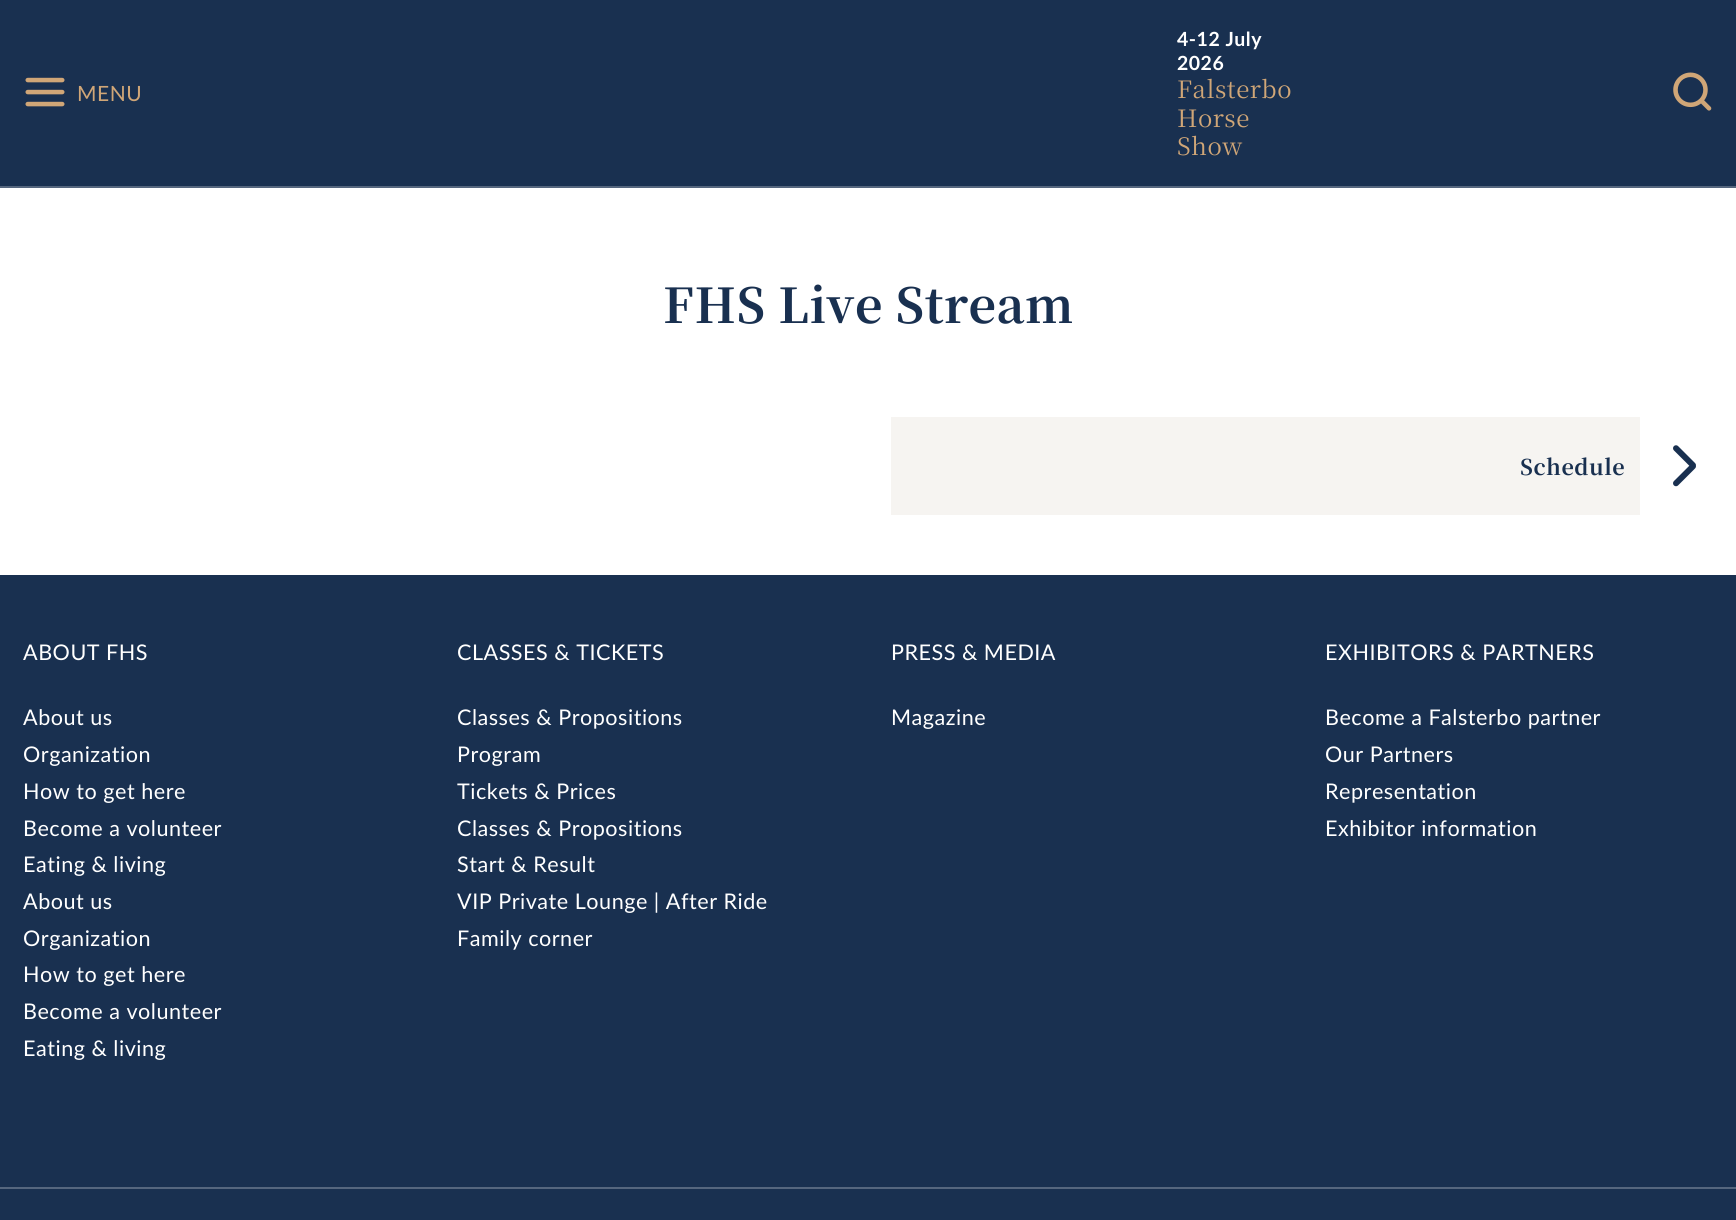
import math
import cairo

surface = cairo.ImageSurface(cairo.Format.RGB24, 1736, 1220)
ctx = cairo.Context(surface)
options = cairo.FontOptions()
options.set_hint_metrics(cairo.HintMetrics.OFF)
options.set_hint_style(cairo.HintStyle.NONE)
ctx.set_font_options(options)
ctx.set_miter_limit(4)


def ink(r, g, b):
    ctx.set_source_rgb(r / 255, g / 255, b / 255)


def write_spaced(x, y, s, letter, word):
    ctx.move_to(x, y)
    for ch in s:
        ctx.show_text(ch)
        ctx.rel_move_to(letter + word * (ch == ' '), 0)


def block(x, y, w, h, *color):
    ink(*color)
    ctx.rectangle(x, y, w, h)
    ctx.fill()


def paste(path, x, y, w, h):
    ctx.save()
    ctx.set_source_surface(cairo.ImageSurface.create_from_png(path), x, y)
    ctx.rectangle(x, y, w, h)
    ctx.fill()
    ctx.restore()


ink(255, 255, 255)
ctx.paint()
block(0, 0, 1736, 186, 25, 48, 80)
block(0, 186, 1736, 2, 85, 102, 126)
paste("pic1.png", 25, 77, 40, 30)
ctx.select_font_face("Lato")
ctx.set_font_size(21)
ink(208, 166, 119)
write_spaced(77, 101, "MENU", 0.5, 0)
ctx.select_font_face("Lato", cairo.FontSlant.NORMAL, cairo.FontWeight.BOLD)
ctx.set_font_size(19.5)
ink(255, 255, 255)
write_spaced(1177, 46, "4-12 July", 0.5, 0)
write_spaced(1177, 70, "2026", 0.5, 0)
ctx.select_font_face("Noto Serif TC")
ctx.set_font_size(24)
ink(208, 166, 119)
write_spaced(1177, 98, "Falsterbo", 0.5, 0)
write_spaced(1177, 127, "Horse", 0.5, 0)
write_spaced(1177, 155, "Show", 0.5, 0)
paste("pic2.png", 1673, 72, 39, 39)
ctx.select_font_face("Noto Serif TC", cairo.FontSlant.NORMAL, cairo.FontWeight.BOLD)
ctx.set_font_size(48)
ink(25, 48, 80)
write_spaced(663, 323, "FHS Live Stream", 0.5, 0)
block(891, 417, 749, 98, 246, 244, 241)
ctx.set_font_size(21.6)
ink(25, 48, 80)
write_spaced(1520, 475, "Schedule", 0.5, 0)
paste("pic3.png", 1673, 445, 23, 42)
block(0, 575, 1736, 645, 25, 48, 80)
ctx.select_font_face("Lato")
ink(255, 255, 255)
write_spaced(23, 660, "ABOUT FHS", 0.5, 0)
write_spaced(23, 725, "About us", 0.5, 0)
write_spaced(23, 762, "Organization", 0.5, 0)
write_spaced(23, 799, "How to get here", 0.5, 0)
write_spaced(23, 836, "Become a volunteer", 0.5, 0)
write_spaced(23, 872, "Eating & living", 0.5, 0)
write_spaced(23, 909, "About us", 0.5, 0)
write_spaced(23, 946, "Organization", 0.5, 0)
write_spaced(23, 982, "How to get here", 0.5, 0)
write_spaced(23, 1019, "Become a volunteer", 0.5, 0)
write_spaced(23, 1056, "Eating & living", 0.5, 0)
write_spaced(457, 660, "CLASSES & TICKETS", 0.5, 0)
write_spaced(457, 725, "Classes & Propositions", 0.5, 0)
write_spaced(457, 762, "Program", 0.5, 0)
write_spaced(457, 799, "Tickets & Prices", 0.5, 0)
write_spaced(457, 836, "Classes & Propositions", 0.5, 0)
write_spaced(457, 872, "Start & Result", 0.5, 0)
write_spaced(457, 909, "VIP Private Lounge | After Ride", 0.5, 0)
write_spaced(457, 946, "Family corner", 0.5, 0)
write_spaced(891, 660, "PRESS & MEDIA", 0.5, 0)
write_spaced(891, 725, "Magazine", 0.5, 0)
write_spaced(1325, 660, "EXHIBITORS & PARTNERS", 0.5, 0)
write_spaced(1325, 725, "Become a Falsterbo partner", 0.5, 0)
write_spaced(1325, 762, "Our Partners", 0.5, 0)
write_spaced(1325, 799, "Representation", 0.5, 0)
write_spaced(1325, 836, "Exhibitor information", 0.5, 0)
block(0, 1187, 1736, 2, 85, 102, 126)
surface.write_to_png("screenshot.png")
